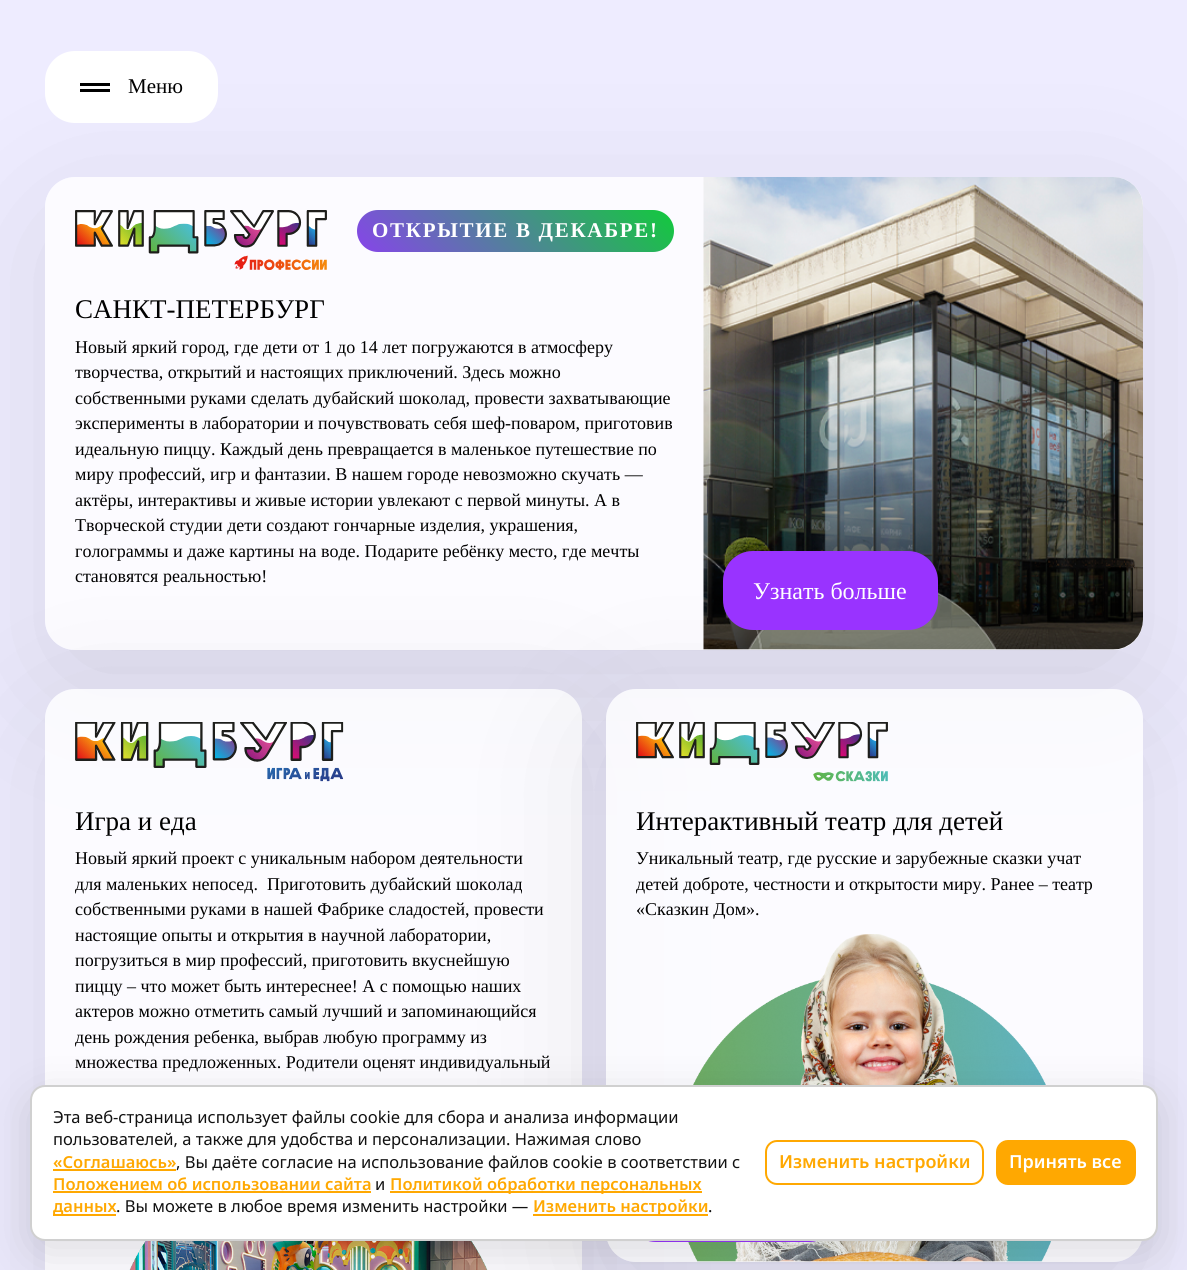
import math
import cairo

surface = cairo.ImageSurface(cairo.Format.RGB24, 1187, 1270)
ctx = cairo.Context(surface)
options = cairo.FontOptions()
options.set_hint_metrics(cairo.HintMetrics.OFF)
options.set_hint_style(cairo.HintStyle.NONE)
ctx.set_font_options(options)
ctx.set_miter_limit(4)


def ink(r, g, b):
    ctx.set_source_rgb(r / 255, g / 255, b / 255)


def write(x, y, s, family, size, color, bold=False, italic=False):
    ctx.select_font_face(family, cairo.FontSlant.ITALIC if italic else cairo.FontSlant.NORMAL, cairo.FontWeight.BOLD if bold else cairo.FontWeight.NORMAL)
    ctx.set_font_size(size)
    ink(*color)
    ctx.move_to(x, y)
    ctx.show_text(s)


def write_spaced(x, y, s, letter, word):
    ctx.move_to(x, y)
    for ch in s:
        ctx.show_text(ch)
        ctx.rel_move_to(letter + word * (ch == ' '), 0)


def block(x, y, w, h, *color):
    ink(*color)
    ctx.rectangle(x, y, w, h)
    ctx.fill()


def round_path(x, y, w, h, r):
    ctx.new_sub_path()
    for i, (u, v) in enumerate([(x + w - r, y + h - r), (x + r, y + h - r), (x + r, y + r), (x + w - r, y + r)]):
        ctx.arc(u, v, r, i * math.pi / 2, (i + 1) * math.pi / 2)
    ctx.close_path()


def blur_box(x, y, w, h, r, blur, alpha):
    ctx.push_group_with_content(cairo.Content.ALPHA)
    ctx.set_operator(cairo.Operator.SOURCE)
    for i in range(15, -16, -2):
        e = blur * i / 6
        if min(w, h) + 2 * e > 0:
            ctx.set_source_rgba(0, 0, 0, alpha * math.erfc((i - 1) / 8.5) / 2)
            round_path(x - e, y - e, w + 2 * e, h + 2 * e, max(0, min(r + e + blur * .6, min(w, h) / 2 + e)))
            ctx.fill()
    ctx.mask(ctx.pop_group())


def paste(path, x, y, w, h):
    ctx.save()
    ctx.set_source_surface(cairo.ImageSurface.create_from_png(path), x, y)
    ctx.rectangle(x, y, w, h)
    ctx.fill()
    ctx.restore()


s1 = dict(family="Liberation Serif", size=21, color=(0, 0, 0))
s2 = dict(family="Liberation Serif", size=27, color=(0, 0, 0))
s3 = dict(family="Liberation Serif", size=18, color=(0, 0, 0))
s4 = dict(family="Liberation Serif", size=24, color=(255, 255, 255))
s5 = dict(family="Noto Sans", size=16.5, color=(17, 17, 17))
s6 = dict(family="Noto Sans SemiBold", size=16.5, color=(255, 168, 1))
s7 = dict(family="Noto Sans SemiBold", size=18, color=(255, 168, 1))
s8 = dict(family="Noto Sans SemiBold", size=18, color=(255, 255, 255))

ink(238, 236, 255)
ctx.paint()
ctx.save()
ctx.set_fill_rule(cairo.FillRule.EVEN_ODD)
ctx.new_path()
ctx.move_to(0, 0)
ctx.line_to(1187, 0)
ctx.line_to(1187, 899)
ctx.line_to(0, 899)
ctx.close_path()
ctx.move_to(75, 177)
ctx.line_to(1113, 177)
ctx.curve_to(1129.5, 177, 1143, 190.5, 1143, 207)
ctx.line_to(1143, 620)
ctx.curve_to(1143, 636.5, 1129.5, 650, 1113, 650)
ctx.line_to(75, 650)
ctx.curve_to(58.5, 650, 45, 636.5, 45, 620)
ctx.line_to(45, 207)
ctx.curve_to(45, 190.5, 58.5, 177, 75, 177)
ctx.close_path()
ctx.clip()
ink(0, 0, 0)
blur_box(45, 213, 1098, 473, 30, 70.5, 0.1)
ctx.restore()
ink(255, 255, 255)
round_path(45, 51, 173, 72, 30)
ctx.fill()
block(80, 83, 30, 3, 0, 0, 0)
block(80, 89, 30, 3, 0, 0, 0)
write(128, 93, "Меню", **s1)
ctx.set_source_rgba(1, 1, 1, 0.8)
round_path(45, 177, 1098, 473, 30)
ctx.fill()
paste("pic1.png", 75, 210, 252, 60)
gradient = cairo.LinearGradient(426, 321, 605, 141)
gradient.add_color_stop_rgba(0, 0.529, 0.267, 0.918, 1)
gradient.add_color_stop_rgba(1, 0.071, 0.792, 0.235, 1)
ctx.set_source(gradient)
round_path(357, 210, 317, 42, 21)
ctx.fill()
ctx.select_font_face("Liberation Serif", cairo.FontSlant.NORMAL, cairo.FontWeight.BOLD)
ink(255, 255, 255)
write_spaced(372, 237, "ОТКРЫТИЕ В ДЕКАБРЕ!", 1.7, 0)
write(75, 318, "САНКТ-ПЕТЕРБУРГ", **s2)
write(75, 353, "Новый яркий город, где дети от 1 до 14 лет погружаются в атмосферу", **s3)
write(75, 378, "творчества, открытий и настоящих приключений. Здесь можно", **s3)
write(75, 404, "собственными руками сделать дубайский шоколад, провести захватывающие", **s3)
write(75, 429, "эксперименты в лаборатории и почувствовать себя шеф-поваром, приготовив", **s3)
write(75, 455, "идеальную пиццу. Каждый день превращается в маленькое путешествие по", **s3)
write(75, 480, "миру профессий, игр и фантазии. В нашем городе невозможно скучать —", **s3)
write(75, 506, "актёры, интерактивы и живые истории увлекают с первой минуты. А в", **s3)
ctx.save()
ctx.set_fill_rule(cairo.FillRule.EVEN_ODD)
ctx.new_path()
ctx.move_to(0, 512)
ctx.line_to(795, 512)
ctx.line_to(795, 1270)
ctx.line_to(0, 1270)
ctx.close_path()
ctx.move_to(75, 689)
ctx.line_to(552, 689)
ctx.curve_to(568.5, 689, 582, 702.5, 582, 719)
ctx.line_to(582, 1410)
ctx.curve_to(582, 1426.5, 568.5, 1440, 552, 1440)
ctx.line_to(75, 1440)
ctx.curve_to(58.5, 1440, 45, 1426.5, 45, 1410)
ctx.line_to(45, 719)
ctx.curve_to(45, 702.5, 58.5, 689, 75, 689)
ctx.close_path()
ctx.clip()
ink(0, 0, 0)
blur_box(45, 725, 537, 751, 30, 70.5, 0.1)
ctx.restore()
ctx.set_source_rgba(1, 1, 1, 0.8)
ctx.new_path()
ctx.move_to(75, 689)
ctx.line_to(552, 689)
ctx.curve_to(568.5, 689, 582, 702.5, 582, 719)
ctx.line_to(582, 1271)
ctx.line_to(45, 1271)
ctx.line_to(45, 719)
ctx.curve_to(45, 702.5, 58.5, 689, 75, 689)
ctx.close_path()
ctx.fill()
ctx.save()
ctx.set_fill_rule(cairo.FillRule.EVEN_ODD)
ctx.new_path()
ctx.move_to(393, 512)
ctx.line_to(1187, 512)
ctx.line_to(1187, 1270)
ctx.line_to(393, 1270)
ctx.close_path()
ctx.move_to(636, 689)
ctx.line_to(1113, 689)
ctx.curve_to(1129.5, 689, 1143, 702.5, 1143, 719)
ctx.line_to(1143, 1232)
ctx.curve_to(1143, 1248.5, 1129.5, 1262, 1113, 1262)
ctx.line_to(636, 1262)
ctx.curve_to(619.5, 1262, 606, 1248.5, 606, 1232)
ctx.line_to(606, 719)
ctx.curve_to(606, 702.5, 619.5, 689, 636, 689)
ctx.close_path()
ctx.clip()
ink(0, 0, 0)
blur_box(606, 725, 537, 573, 30, 70.5, 0.1)
ctx.restore()
write(75, 531, "Творческой студии дети создают гончарные изделия, украшения,", **s3)
write(75, 557, "голограммы и даже картины на воде. Подарите ребёнку место, где мечты", **s3)
write(75, 582, "становятся реальностью!", **s3)
paste("pic2.png", 703, 177, 440, 473)
ink(153, 51, 255)
round_path(723, 551, 215, 79, 30)
ctx.fill()
write(753, 599, "Узнать больше", **s4)
paste("pic3.png", 75, 722, 269, 60)
write(75, 830, "Игра и еда", **s2)
write(75, 864, "Новый яркий проект с уникальным набором деятельности", **s3)
write(75, 890, "для маленьких непосед.  Приготовить дубайский шоколад", **s3)
write(75, 915, "собственными руками в нашей Фабрике сладостей, провести", **s3)
write(75, 941, "настоящие опыты и открытия в научной лаборатории,", **s3)
write(75, 966, "погрузиться в мир профессий, приготовить вкуснейшую", **s3)
write(75, 992, "пиццу – что может быть интереснее! А с помощью наших", **s3)
write(75, 1017, "актеров можно отметить самый лучший и запоминающийся", **s3)
write(75, 1043, "день рождения ребенка, выбрав любую программу из", **s3)
write(75, 1068, "множества предложенных. Родители оценят индивидуальный", **s3)
paste("pic4.png", 129, 1241, 359, 29)
ctx.set_source_rgba(1, 1, 1, 0.8)
round_path(606, 689, 537, 573, 30)
ctx.fill()
paste("pic5.png", 636, 722, 252, 60)
write(636, 830, "Интерактивный театр для детей", **s2)
write(636, 864, "Уникальный театр, где русские и зарубежные сказки учат", **s3)
write(636, 890, "детей доброте, честности и открытости миру. Ранее – театр", **s3)
write(636, 915, "«Сказкин Дом».", **s3)
paste("pic6.png", 688, 934, 363, 328)
ink(153, 51, 255)
round_path(626, 1163, 213, 79, 30)
ctx.fill()
ink(0, 0, 0)
blur_box(30, 1097, 1128, 156, 15, 22.5, 0.12)
ink(255, 255, 255)
round_path(31, 1086, 1126, 154, 14)
ctx.fill_preserve()
ink(208, 208, 208)
ctx.stroke()
write(53, 1123, "Эта веб-страница использует файлы cookie для сбора и анализа информации", **s5)
write(53, 1145, "пользователей, а также для удобства и персонализации. Нажимая слово", **s5)
write(53, 1168, "«Соглашаюсь»", **s6)
block(53, 1169, 123, 2, 255, 168, 1)
write(176, 1168, ", Вы даёте согласие на использование файлов cookie в соответствии с", **s5)
write(53, 1190, "Положением об использовании сайта", **s6)
block(53, 1191, 318, 2, 255, 168, 1)
write(375, 1190, "и", **s5)
block(390, 1191, 312, 2, 255, 168, 1)
write(390, 1190, "Политикой обработки персональных", **s6)
block(53, 1214, 63, 2, 255, 168, 1)
write(53, 1212, "данных", **s6)
write(116, 1212, ". Вы можете в любое время изменить настройки —", **s5)
block(533, 1214, 175, 2, 255, 168, 1)
write(533, 1212, "Изменить настройки", **s6)
write(708, 1212, ".", **s5)
round_path(766, 1141, 217, 43, 11)
ink(255, 168, 1)
ctx.stroke()
write(779, 1168, "Изменить настройки", **s7)
round_path(996, 1140, 140, 45, 12)
ctx.fill()
write(1009, 1168, "Принять все", **s8)
surface.write_to_png("screenshot.png")
